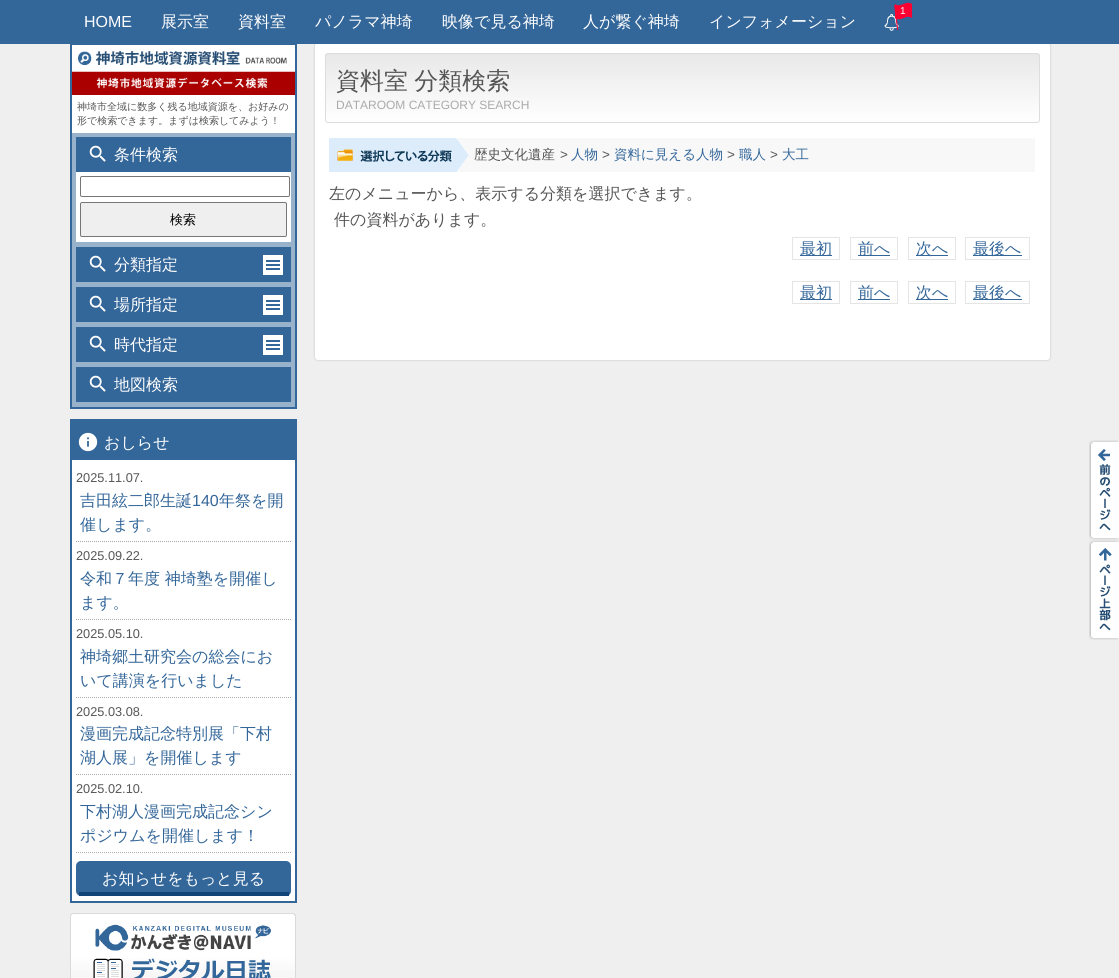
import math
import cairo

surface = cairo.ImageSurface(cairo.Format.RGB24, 1119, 978)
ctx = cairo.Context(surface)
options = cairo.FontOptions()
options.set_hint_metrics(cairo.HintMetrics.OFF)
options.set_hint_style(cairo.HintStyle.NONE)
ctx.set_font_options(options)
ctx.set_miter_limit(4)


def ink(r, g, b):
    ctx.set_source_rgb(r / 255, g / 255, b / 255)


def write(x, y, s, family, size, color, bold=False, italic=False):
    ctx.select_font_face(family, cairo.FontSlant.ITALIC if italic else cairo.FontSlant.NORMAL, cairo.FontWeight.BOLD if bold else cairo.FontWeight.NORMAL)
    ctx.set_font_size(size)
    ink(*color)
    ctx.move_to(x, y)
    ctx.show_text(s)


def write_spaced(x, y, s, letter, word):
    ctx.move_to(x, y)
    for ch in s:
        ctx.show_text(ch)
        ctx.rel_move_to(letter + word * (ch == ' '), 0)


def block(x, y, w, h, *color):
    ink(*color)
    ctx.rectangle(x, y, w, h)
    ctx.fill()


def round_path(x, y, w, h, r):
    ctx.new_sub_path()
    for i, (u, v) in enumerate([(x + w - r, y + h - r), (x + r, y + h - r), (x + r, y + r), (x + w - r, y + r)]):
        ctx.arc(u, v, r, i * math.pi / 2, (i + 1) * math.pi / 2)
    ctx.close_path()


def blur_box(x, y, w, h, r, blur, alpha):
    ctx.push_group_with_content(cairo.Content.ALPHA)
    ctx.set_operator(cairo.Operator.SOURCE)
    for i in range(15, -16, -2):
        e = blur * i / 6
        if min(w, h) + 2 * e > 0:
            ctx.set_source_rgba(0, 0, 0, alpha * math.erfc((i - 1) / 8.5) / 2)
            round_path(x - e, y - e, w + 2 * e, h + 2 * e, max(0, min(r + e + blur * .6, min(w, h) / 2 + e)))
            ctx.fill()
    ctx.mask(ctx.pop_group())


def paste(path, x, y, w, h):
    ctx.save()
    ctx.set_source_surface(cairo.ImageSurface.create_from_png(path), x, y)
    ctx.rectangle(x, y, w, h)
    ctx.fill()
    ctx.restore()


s1 = dict(family="Liberation Sans", size=10, color=(255, 255, 255))
s2 = dict(family="Liberation Sans", size=16, color=(255, 255, 255))
s3 = dict(family="WenQuanYi Zen Hei Medium", size=16, color=(255, 255, 255))
s4 = dict(family="WenQuanYi Zen Hei Medium", size=10, color=(85, 85, 85))
s5 = dict(family="WenQuanYi Zen Hei Medium", size=13, color=(0, 0, 0))
s6 = dict(family="Liberation Sans", size=12.75, color=(85, 85, 85))
s7 = dict(family="WenQuanYi Zen Hei Medium", size=16, color=(51, 102, 153))
s8 = dict(family="Liberation Sans", size=16, color=(51, 102, 153))
s9 = dict(family="Liberation Sans", size=12, color=(170, 170, 170))
s10 = dict(family="WenQuanYi Zen Hei Medium", size=13.5, color=(85, 85, 85))
s11 = dict(family="Liberation Sans", size=13.5, color=(85, 85, 85))
s12 = dict(family="WenQuanYi Zen Hei Medium", size=13.5, color=(51, 102, 153))
s13 = dict(family="WenQuanYi Zen Hei Medium", size=16, color=(85, 85, 85))

ink(239, 239, 239)
ctx.paint()
block(72, 133, 223, 274, 153, 178, 204)
ctx.rectangle(71, 44, 225, 364)
ink(51, 102, 153)
ctx.stroke()
ink(221, 221, 221)
blur_box(314, 42, 737, 319, 4, 0.5, 1)
ink(255, 255, 255)
round_path(315, 43, 735, 317, 3)
ctx.fill()
block(0, 0, 1119, 44, 51, 102, 153)
paste("pic1.png", 884, 14, 15, 17)
paste("pic2.png", 894, 2, 18, 28)
write(900, 14, "1", **s1)
write(84, 27, "HOME", **s2)
write(161, 27, "展示室", **s3)
write(238, 27, "資料室", **s3)
write(315, 27, "パノラマ神埼", **s3)
write(442, 27, "映像で見る神埼", **s3)
write(583, 27, "人が繋ぐ神埼", **s3)
write(709, 27, "インフォメーション", **s3)
paste("pic3.png", 72, 45, 223, 50)
block(72, 95, 223, 38, 255, 255, 255)
write(77, 110, "神埼市全域に数多く残る地域資源を、お好みの", **s4)
write(77, 124, "形で検索できます。まずは検索してみよう！", **s4)
block(76, 137, 215, 35, 51, 102, 153)
paste("pic4.png", 89, 145, 17, 17)
write(114, 160, "条件検索", **s3)
block(76, 172, 215, 70, 255, 255, 255)
round_path(80.5, 176.5, 209, 20, 1.5)
ink(118, 118, 118)
ctx.set_line_width(1)
ctx.stroke()
ink(239, 239, 239)
round_path(80.5, 202.5, 206, 34, 1.5)
ctx.fill_preserve()
ink(118, 118, 118)
ctx.stroke()
write(170, 224, "検索", **s5)
block(76, 247, 215, 35, 51, 102, 153)
paste("pic4.png", 89, 255, 17, 17)
write(114, 270, "分類指定", **s3)
paste("pic5.png", 263, 255, 20, 20)
block(76, 287, 215, 35, 51, 102, 153)
paste("pic4.png", 89, 295, 17, 17)
write(114, 310, "場所指定", **s3)
paste("pic5.png", 263, 295, 20, 20)
block(76, 327, 215, 35, 51, 102, 153)
paste("pic4.png", 89, 335, 17, 17)
write(114, 350, "時代指定", **s3)
paste("pic5.png", 263, 335, 20, 20)
block(76, 367, 215, 35, 51, 102, 153)
paste("pic4.png", 89, 375, 17, 17)
write(114, 390, "地図検索", **s3)
block(72, 460, 223, 441, 255, 255, 255)
ctx.rectangle(71, 420, 225, 482)
ink(51, 102, 153)
ctx.set_line_width(2)
ctx.stroke()
block(72, 421, 223, 39, 51, 102, 153)
paste("pic6.png", 78, 432, 20, 20)
write(104, 448, "おしらせ", **s3)
write(76, 482, "2025.11.07.", **s6)
ctx.new_path()
ctx.move_to(76, 541.5)
ctx.line_to(291, 541.5)
ink(170, 170, 170)
ctx.set_line_width(1)
ctx.set_dash([1, 1])
ctx.stroke()
write(80, 506, "吉田絃二郎生誕", **s7)
write(192, 506, "140", **s8)
write(219, 506, "年祭を開", **s7)
write(80, 530, "催します。", **s7)
write(76, 560, "2025.09.22.", **s6)
ctx.new_path()
ctx.move_to(76, 619.5)
ctx.line_to(291, 619.5)
ink(170, 170, 170)
ctx.stroke()
write(80, 584, "令和７年度 神埼塾を開催し", **s7)
write(80, 608, "ます。", **s7)
write(76, 638, "2025.05.10.", **s6)
ctx.new_path()
ctx.move_to(76, 697.5)
ctx.line_to(291, 697.5)
ink(170, 170, 170)
ctx.stroke()
write(80, 662, "神埼郷土研究会の総会にお", **s7)
write(80, 686, "いて講演を行いました", **s7)
write(76, 716, "2025.03.08.", **s6)
ctx.new_path()
ctx.move_to(76, 774.5)
ctx.line_to(291, 774.5)
ink(170, 170, 170)
ctx.stroke()
write(80, 739, "漫画完成記念特別展「下村", **s7)
write(80, 763, "湖人展」を開催します", **s7)
write(76, 793, "2025.02.10.", **s6)
ctx.new_path()
ctx.move_to(76, 852.5)
ctx.line_to(291, 852.5)
ink(170, 170, 170)
ctx.stroke()
write(80, 817, "下村湖人漫画完成記念シン", **s7)
write(80, 841, "ポジウムを開催します！", **s7)
round_path(76, 861, 215, 35, 5)
ctx.fill()
block(79, 892, 210, 4, 17, 68, 119)
write(102, 884, "お知らせをもっと見る", **s3)
paste("pic7.png", 70, 913, 226, 65)
ctx.save()
round_path(325, 53, 715, 70, 3)
ctx.clip()
gradient = cairo.LinearGradient(683, 54, 683, 122)
gradient.add_color_stop_rgba(0, 0.91, 0.91, 0.91, 1)
gradient.add_color_stop_rgba(1, 1, 1, 1, 1)
ctx.set_source(gradient)
ctx.rectangle(325, 54, 715, 68)
ctx.fill()
ctx.restore()
round_path(325.5, 53.5, 714, 69, 2.5)
ink(221, 221, 221)
ctx.set_dash([])
ctx.stroke()
ctx.set_font_size(24)
ink(85, 85, 85)
write_spaced(336, 89, "資料室 分類検索", 0, -1)
write(336, 109, "DATAROOM CATEGORY SEARCH", **s9)
block(458, 138, 577, 34, 248, 248, 248)
paste("pic8.png", 329, 138, 140, 34)
write(474, 159, "歴史文化遺産", **s10)
write(560, 159, ">", **s11)
write(571, 159, "人物", **s12)
write(602, 159, ">", **s11)
write(614, 159, "資料に見える人物", **s12)
write(727, 159, ">", **s11)
write(739, 159, "職人", **s12)
write(770, 159, ">", **s11)
write(782, 159, "大工", **s12)
write(329, 199, "左のメニューから、表示する分類を選択できます。", **s13)
write(334, 225, "件の資料があります。", **s13)
ctx.rectangle(792.5, 237.5, 47, 22)
ink(229, 229, 229)
ctx.stroke()
block(800, 255, 32, 1, 51, 102, 153)
write(800, 254, "最初", **s7)
ctx.rectangle(850.5, 237.5, 47, 22)
ink(229, 229, 229)
ctx.stroke()
block(858, 255, 32, 1, 51, 102, 153)
write(858, 254, "前へ", **s7)
ctx.rectangle(908.5, 237.5, 47, 22)
ink(229, 229, 229)
ctx.stroke()
block(916, 255, 32, 1, 51, 102, 153)
write(916, 254, "次へ", **s7)
ctx.rectangle(965.5, 237.5, 64, 22)
ink(229, 229, 229)
ctx.stroke()
block(973, 255, 49, 1, 51, 102, 153)
write(973, 254, "最後へ", **s7)
ctx.rectangle(792.5, 281.5, 47, 22)
ink(229, 229, 229)
ctx.stroke()
block(800, 299, 32, 1, 51, 102, 153)
write(800, 298, "最初", **s7)
ctx.rectangle(850.5, 281.5, 47, 22)
ink(229, 229, 229)
ctx.stroke()
block(858, 299, 32, 1, 51, 102, 153)
write(858, 298, "前へ", **s7)
ctx.rectangle(908.5, 281.5, 47, 22)
ink(229, 229, 229)
ctx.stroke()
block(916, 299, 32, 1, 51, 102, 153)
write(916, 298, "次へ", **s7)
ctx.rectangle(965.5, 281.5, 64, 22)
ink(229, 229, 229)
ctx.stroke()
block(973, 299, 49, 1, 51, 102, 153)
write(973, 298, "最後へ", **s7)
paste("pic9.png", 1089, 440, 30, 100)
paste("pic10.png", 1089, 540, 30, 100)
surface.write_to_png("screenshot.png")
